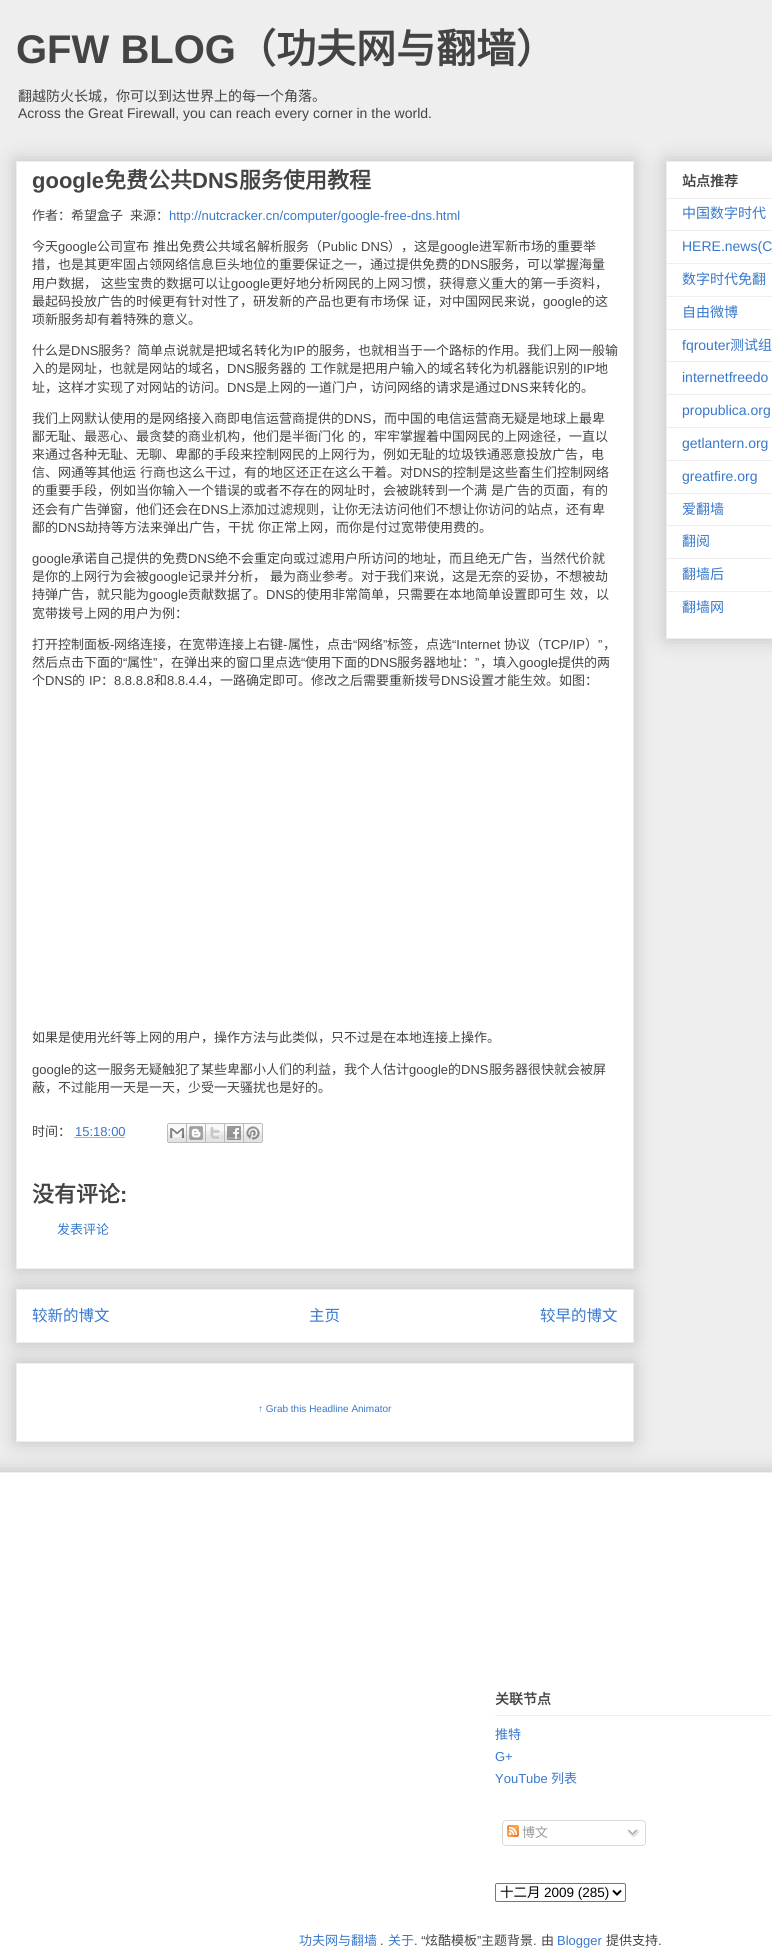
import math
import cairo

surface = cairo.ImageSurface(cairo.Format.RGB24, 772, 1960)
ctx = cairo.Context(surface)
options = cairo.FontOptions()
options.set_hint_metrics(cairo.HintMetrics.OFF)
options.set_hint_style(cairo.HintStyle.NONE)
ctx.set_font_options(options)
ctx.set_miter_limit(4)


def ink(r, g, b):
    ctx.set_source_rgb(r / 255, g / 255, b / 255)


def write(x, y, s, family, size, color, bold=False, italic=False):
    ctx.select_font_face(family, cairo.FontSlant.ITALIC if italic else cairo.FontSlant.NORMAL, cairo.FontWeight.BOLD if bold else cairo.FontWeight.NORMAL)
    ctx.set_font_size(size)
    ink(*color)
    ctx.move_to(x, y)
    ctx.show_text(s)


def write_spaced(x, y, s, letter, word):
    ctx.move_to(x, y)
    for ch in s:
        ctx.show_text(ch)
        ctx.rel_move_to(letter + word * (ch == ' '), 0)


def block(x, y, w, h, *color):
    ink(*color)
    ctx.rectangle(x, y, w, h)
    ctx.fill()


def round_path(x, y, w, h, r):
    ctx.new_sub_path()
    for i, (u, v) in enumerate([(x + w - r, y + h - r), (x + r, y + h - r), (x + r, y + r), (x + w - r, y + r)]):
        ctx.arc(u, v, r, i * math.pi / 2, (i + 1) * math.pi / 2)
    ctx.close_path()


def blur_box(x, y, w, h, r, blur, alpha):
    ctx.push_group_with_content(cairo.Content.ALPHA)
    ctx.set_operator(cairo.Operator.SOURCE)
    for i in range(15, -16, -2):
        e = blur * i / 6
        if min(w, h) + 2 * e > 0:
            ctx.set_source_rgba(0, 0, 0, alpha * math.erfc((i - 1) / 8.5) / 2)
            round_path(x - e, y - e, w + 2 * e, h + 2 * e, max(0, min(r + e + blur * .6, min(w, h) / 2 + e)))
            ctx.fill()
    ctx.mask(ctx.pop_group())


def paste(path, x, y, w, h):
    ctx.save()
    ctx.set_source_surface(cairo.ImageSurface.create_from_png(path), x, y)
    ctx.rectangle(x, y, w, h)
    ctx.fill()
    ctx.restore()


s1 = dict(family="Liberation Sans", size=40, color=(68, 68, 68), bold=True)
s2 = dict(family="Noto Sans CJK SC", size=40, color=(68, 68, 68), bold=True)
s3 = dict(family="Noto Sans CJK SC", size=14, color=(68, 68, 68))
s4 = dict(family="Liberation Sans", size=14, color=(68, 68, 68))
s5 = dict(family="Liberation Sans", size=22, color=(68, 68, 68), bold=True)
s6 = dict(family="Noto Sans CJK SC", size=22, color=(68, 68, 68), bold=True)
s7 = dict(family="Noto Sans CJK SC", size=13, color=(68, 68, 68))
s8 = dict(family="Liberation Sans", size=13, color=(55, 120, 205))
s9 = dict(family="Liberation Sans", size=13, color=(68, 68, 68))
s10 = dict(family="Noto Sans CJK SC", size=13, color=(55, 120, 205))
s11 = dict(family="Noto Sans CJK SC", size=15.5, color=(55, 120, 205))
s12 = dict(family="Liberation Sans", size=10, color=(55, 120, 205))
s13 = dict(family="Noto Sans CJK SC", size=14, color=(68, 68, 68), bold=True)
s14 = dict(family="Noto Sans CJK SC", size=14, color=(55, 120, 205))
s15 = dict(family="Liberation Sans", size=14, color=(55, 120, 205))
s16 = dict(family="Noto Sans CJK SC", size=13, color=(153, 153, 153))
s17 = dict(family="Noto Sans CJK SC", size=13.5, color=(0, 0, 0))
s18 = dict(family="Liberation Sans", size=13.5, color=(0, 0, 0))

ink(238, 238, 238)
ctx.paint()
write(16, 63, "GFW BLOG", **s1)
write(236, 63, "（功夫网与翻墙）", **s2)
write(18, 101, "翻越防火长城，你可以到达世界上的每一个角落。", **s3)
write(18, 118, "Across the Great Firewall, you can reach every corner in the world.", **s4)
ink(0, 0, 0)
blur_box(16, 1289, 618, 54, 0, 10, 0.2)
ink(255, 255, 255)
ctx.rectangle(16.5, 1289.5, 617, 53)
ctx.fill_preserve()
ink(238, 238, 238)
ctx.set_line_width(1)
ctx.stroke()
ink(0, 0, 0)
blur_box(16, 161, 618, 1108, 0, 10, 0.2)
ink(255, 255, 255)
ctx.rectangle(16.5, 161.5, 617, 1107)
ctx.fill_preserve()
ink(238, 238, 238)
ctx.stroke()
write(32, 188, "google", **s5)
write(104, 188, "免费公共", **s6)
write(192, 188, "DNS", **s5)
write(239, 188, "服务使用教程", **s6)
write(32, 220, "作者：希望盒子", **s7)
write(130, 220, "来源：", **s7)
write(169, 220, "http://nutcracker.cn/computer/google-free-dns.html", **s8)
write(32, 251, "今天", **s7)
write(58, 251, "google", **s9)
write(97, 251, "公司宣布", **s7)
write(153, 251, "推出免费公共域名解析服务（", **s7)
write(322, 251, "Public DNS", **s9)
write(388, 251, "），这是", **s7)
write(440, 251, "google", **s9)
write(479, 251, "进军新市场的重要举", **s7)
write(32, 269, "措，也是其更牢固占领网络信息巨头地位的重要保证之一，通过提供免费的", **s7)
write(461, 269, "DNS", **s9)
write(488, 269, "服务，可以掌握海量", **s7)
write_spaced(32, 288, "用户数据， 这些宝贵的数据可以让", 0, 1)
write(231, 288, "google", **s9)
write(270, 288, "更好地分析网民的上网习惯，获得意义重大的第一手资料，", **s7)
write_spaced(32, 306, "最起码投放广告的时候更有针对性了，研发新的产品也更有市场保 证，对中国网民来说，", 0, 1)
write(543, 306, "google", **s9)
write(582, 306, "的这", **s7)
write(32, 324, "项新服务却有着特殊的意义。", **s7)
write(32, 355, "什么是", **s7)
write(71, 355, "DNS", **s9)
write(98, 355, "服务？简单点说就是把域名转化为", **s7)
write(293, 355, "IP", **s9)
write(306, 355, "的服务，也就相当于一个路标的作用。我们上网一般输", **s7)
write(32, 373, "入的是网址，也就是网站的域名，", **s7)
write(227, 373, "DNS", **s9)
ctx.select_font_face("Noto Sans CJK SC")
write_spaced(254, 373, "服务器的 工作就是把用户输入的域名转化为机器能识别的", 0, 1)
write(583, 373, "IP", **s9)
write(595, 373, "地", **s7)
write(32, 392, "址，这样才实现了对网站的访问。", **s7)
write(227, 392, "DNS", **s9)
write(254, 392, "是上网的一道门户，访问网络的请求是通过", **s7)
write(501, 392, "DNS", **s9)
write(529, 392, "来转化的。", **s7)
write(32, 423, "我们上网默认使用的是网络接入商即电信运营商提供的", **s7)
write(344, 423, "DNS", **s9)
write(371, 423, "，而中国的电信运营商无疑是地球上最卑", **s7)
write_spaced(32, 441, "鄙无耻、最恶心、最贪婪的商业机构，他们是半衙门化 的，牢牢掌握着中国网民的上网途径，一直以", 0, 1)
write(32, 459, "来通过各种无耻、无聊、卑鄙的手段来控制网民的上网行为，例如无耻的垃圾铁通恶意投放广告，电", **s7)
write_spaced(32, 477, "信、网通等其他运 行商也这么干过，有的地区还正在这么干着。对", 0, 1)
write(413, 477, "DNS", **s9)
write(440, 477, "的控制是这些畜生们控制网络", **s7)
write_spaced(32, 495, "的重要手段，例如当你输入一个错误的或者不存在的网址时，会被跳转到一个满 是广告的页面，有的", 0, 1)
write(32, 514, "还会有广告弹窗，他们还会在", **s7)
write(201, 514, "DNS", **s9)
write(228, 514, "上添加过滤规则，让你无法访问他们不想让你访问的站点，还有卑", **s7)
write(32, 532, "鄙的", **s7)
write(58, 532, "DNS", **s9)
ctx.select_font_face("Noto Sans CJK SC")
write_spaced(85, 532, "劫持等方法来弹出广告，干扰 你正常上网，而你是付过宽带使用费的。", 0, 1)
write(32, 563, "google", **s9)
write(71, 563, "承诺自己提供的免费", **s7)
write(188, 563, "DNS", **s9)
write(215, 563, "绝不会重定向或过滤用户所访问的地址，而且绝无广告，当然代价就", **s7)
write(32, 581, "是你的上网行为会被", **s7)
write(149, 581, "google", **s9)
ctx.select_font_face("Noto Sans CJK SC")
write_spaced(188, 581, "记录并分析， 最为商业参考。对于我们来说，这是无奈的妥协，不想被劫", 0, 1)
write(32, 599, "持弹广告，就只能为", **s7)
write(149, 599, "google", **s9)
write(188, 599, "贡献数据了。", **s7)
write(266, 599, "DNS", **s9)
ctx.select_font_face("Noto Sans CJK SC")
write_spaced(293, 599, "的使用非常简单，只需要在本地简单设置即可生 效，以", 0, 1)
write(32, 618, "宽带拨号上网的用户为例：", **s7)
write(32, 649, "打开控制面板", **s7)
write(114, 649, "网络连接，在宽带连接上右键", **s7)
write(288, 649, "属性，点击", **s7)
write(353, 649, "“", **s9)
write(357, 649, "网络", **s7)
write(383, 649, "”", **s9)
write(387, 649, "标签，点选", **s7)
write(452, 649, "“Internet", **s9)
write(504, 649, "协议（", **s7)
write(543, 649, "TCP/IP", **s9)
write(585, 649, "）", **s7)
write(598, 649, "”", **s9)
write(110, 649, "-", **s9)
write(283, 649, "-", **s9)
write(603, 649, "，", **s7)
write(32, 667, "然后点击下面的", **s7)
write(123, 667, "“", **s9)
write(127, 667, "属性", **s7)
write(153, 667, "”", **s9)
write(158, 667, "，在弹出来的窗口里点选", **s7)
write(301, 667, "“", **s9)
write(305, 667, "使用下面的", **s7)
write(370, 667, "DNS", **s9)
write(397, 667, "服务器地址：", **s7)
write(475, 667, "”", **s9)
write(480, 667, "，填入", **s7)
write(519, 667, "google", **s9)
write(558, 667, "提供的两", **s7)
write(32, 685, "个", **s7)
write(45, 685, "DNS", **s9)
write(72, 685, "的", **s7)
write(89, 685, "IP", **s9)
write(101, 685, "：", **s7)
write(114, 685, "8.8.8.8", **s9)
write(154, 685, "和", **s7)
write(167, 685, "8.8.4.4", **s9)
write(207, 685, "，一路确定即可。修改之后需要重新拨号", **s7)
write(441, 685, "DNS", **s9)
write(468, 685, "设置才能生效。如图：", **s7)
write(32, 1042, "如果是使用光纤等上网的用户，操作方法与此类似，只不过是在本地连接上操作。", **s7)
write(32, 1074, "google", **s9)
write(71, 1074, "的这一服务无疑触犯了某些卑鄙小人们的利益，我个人估计", **s7)
write(409, 1074, "google", **s9)
write(448, 1074, "的", **s7)
write(461, 1074, "DNS", **s9)
write(489, 1074, "服务器很快就会被屏", **s7)
write(32, 1092, "蔽，不过能用一天是一天，少受一天骚扰也是好的。", **s7)
write(32, 1136, "时间：", **s7)
write(75, 1136, "15:18:00", **s8)
ctx.new_path()
ctx.move_to(74.5, 1137.5)
ctx.line_to(125, 1137.5)
ctx.set_dash([1, 1])
ctx.stroke()
paste("pic1.png", 167, 1123, 20, 20)
paste("pic2.png", 187, 1123, 19, 20)
paste("pic3.png", 206, 1123, 19, 20)
paste("pic4.png", 225, 1123, 19, 20)
paste("pic5.png", 244, 1123, 19, 20)
write(32, 1202, "没有评论", **s6)
write(120, 1202, ":", **s5)
write(57, 1234, "发表评论", **s10)
write(32, 1321, "较新的博文", **s11)
write(309, 1321, "主页", **s11)
write(540, 1321, "较早的博文", **s11)
ink(0, 0, 0)
blur_box(16, 1363, 618, 79, 0, 10, 0.2)
ink(255, 255, 255)
ctx.rectangle(16.5, 1363.5, 617, 78)
ctx.fill_preserve()
ink(238, 238, 238)
ctx.set_dash([])
ctx.stroke()
write(258, 1412, "↑ Grab this Headline Animator", **s12)
ink(0, 0, 0)
blur_box(666, 161, 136, 478, 0, 10, 0.2)
ink(255, 255, 255)
ctx.rectangle(666.5, 161.5, 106, 477)
ctx.fill_preserve()
ink(238, 238, 238)
ctx.stroke()
write(682, 186, "站点推荐", **s13)
block(667, 198, 105, 1, 238, 238, 238)
write(682, 218, "中国数字时代", **s14)
block(667, 230, 105, 1, 238, 238, 238)
write(682, 251, "HERE.news(C", **s15)
block(667, 263, 105, 1, 238, 238, 238)
write(682, 284, "数字时代免翻", **s14)
block(667, 296, 105, 1, 238, 238, 238)
write(682, 317, "自由微博", **s14)
block(667, 329, 105, 1, 238, 238, 238)
write(682, 350, "fqrouter", **s15)
write(730, 350, "测试组", **s14)
block(667, 361, 105, 1, 238, 238, 238)
write(682, 382, "internetfreedo", **s15)
block(667, 394, 105, 1, 238, 238, 238)
write(682, 415, "propublica.org", **s15)
block(667, 427, 105, 1, 238, 238, 238)
write(682, 448, "getlantern.org", **s15)
block(667, 460, 105, 1, 238, 238, 238)
write(682, 481, "greatfire.org", **s15)
block(667, 493, 105, 1, 238, 238, 238)
write(682, 514, "爱翻墙", **s14)
block(667, 525, 105, 1, 238, 238, 238)
write(682, 546, "翻阅", **s14)
block(667, 558, 105, 1, 238, 238, 238)
write(682, 579, "翻墙后", **s14)
block(667, 591, 105, 1, 238, 238, 238)
write(682, 612, "翻墙网", **s14)
ink(0, 0, 0)
blur_box(-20, 1472, 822, 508, 0, 10, 0.2)
block(0, 1473, 772, 487, 255, 255, 255)
block(0, 1472, 772, 1, 238, 238, 238)
write(495, 1704, "关联节点", **s13)
block(495, 1715, 277, 1, 238, 238, 238)
write(495, 1739, "推特", **s10)
write(495, 1761, "G+", **s8)
write(495, 1783, "YouTube", **s8)
write(551, 1783, "列表", **s10)
paste("pic6.png", 502, 1820, 144, 23)
paste("pic7.png", 507, 1825, 12, 12)
write(522, 1837, "博文", **s16)
paste("pic8.png", 627, 1829, 13, 9)
paste("pic9.png", 502, 1843, 144, 3)
round_path(495.5, 1883.5, 130, 18, 1.5)
ink(118, 118, 118)
ctx.stroke()
ctx.new_path()
ctx.move_to(613, 1890.5)
ctx.line_to(617, 1894.5)
ctx.line_to(621, 1890.5)
ink(0, 0, 0)
ctx.set_line_width(2)
ctx.stroke()
write(500, 1897, "十二月", **s17)
write(544, 1897, "2009 (285)", **s18)
write(299, 1945, "功夫网与翻墙", **s10)
write(388, 1945, "关于", **s10)
write(414, 1945, ". “", **s9)
write(425, 1945, "炫酷模板", **s7)
write(477, 1945, "”", **s9)
write(481, 1945, "主题背景", **s7)
write(541, 1945, "由", **s7)
write(557, 1945, "Blogger", **s8)
write(606, 1945, "提供支持", **s7)
write(380, 1945, ".", **s9)
write(533, 1945, ".", **s9)
write(658, 1945, ".", **s9)
surface.write_to_png("screenshot.png")
